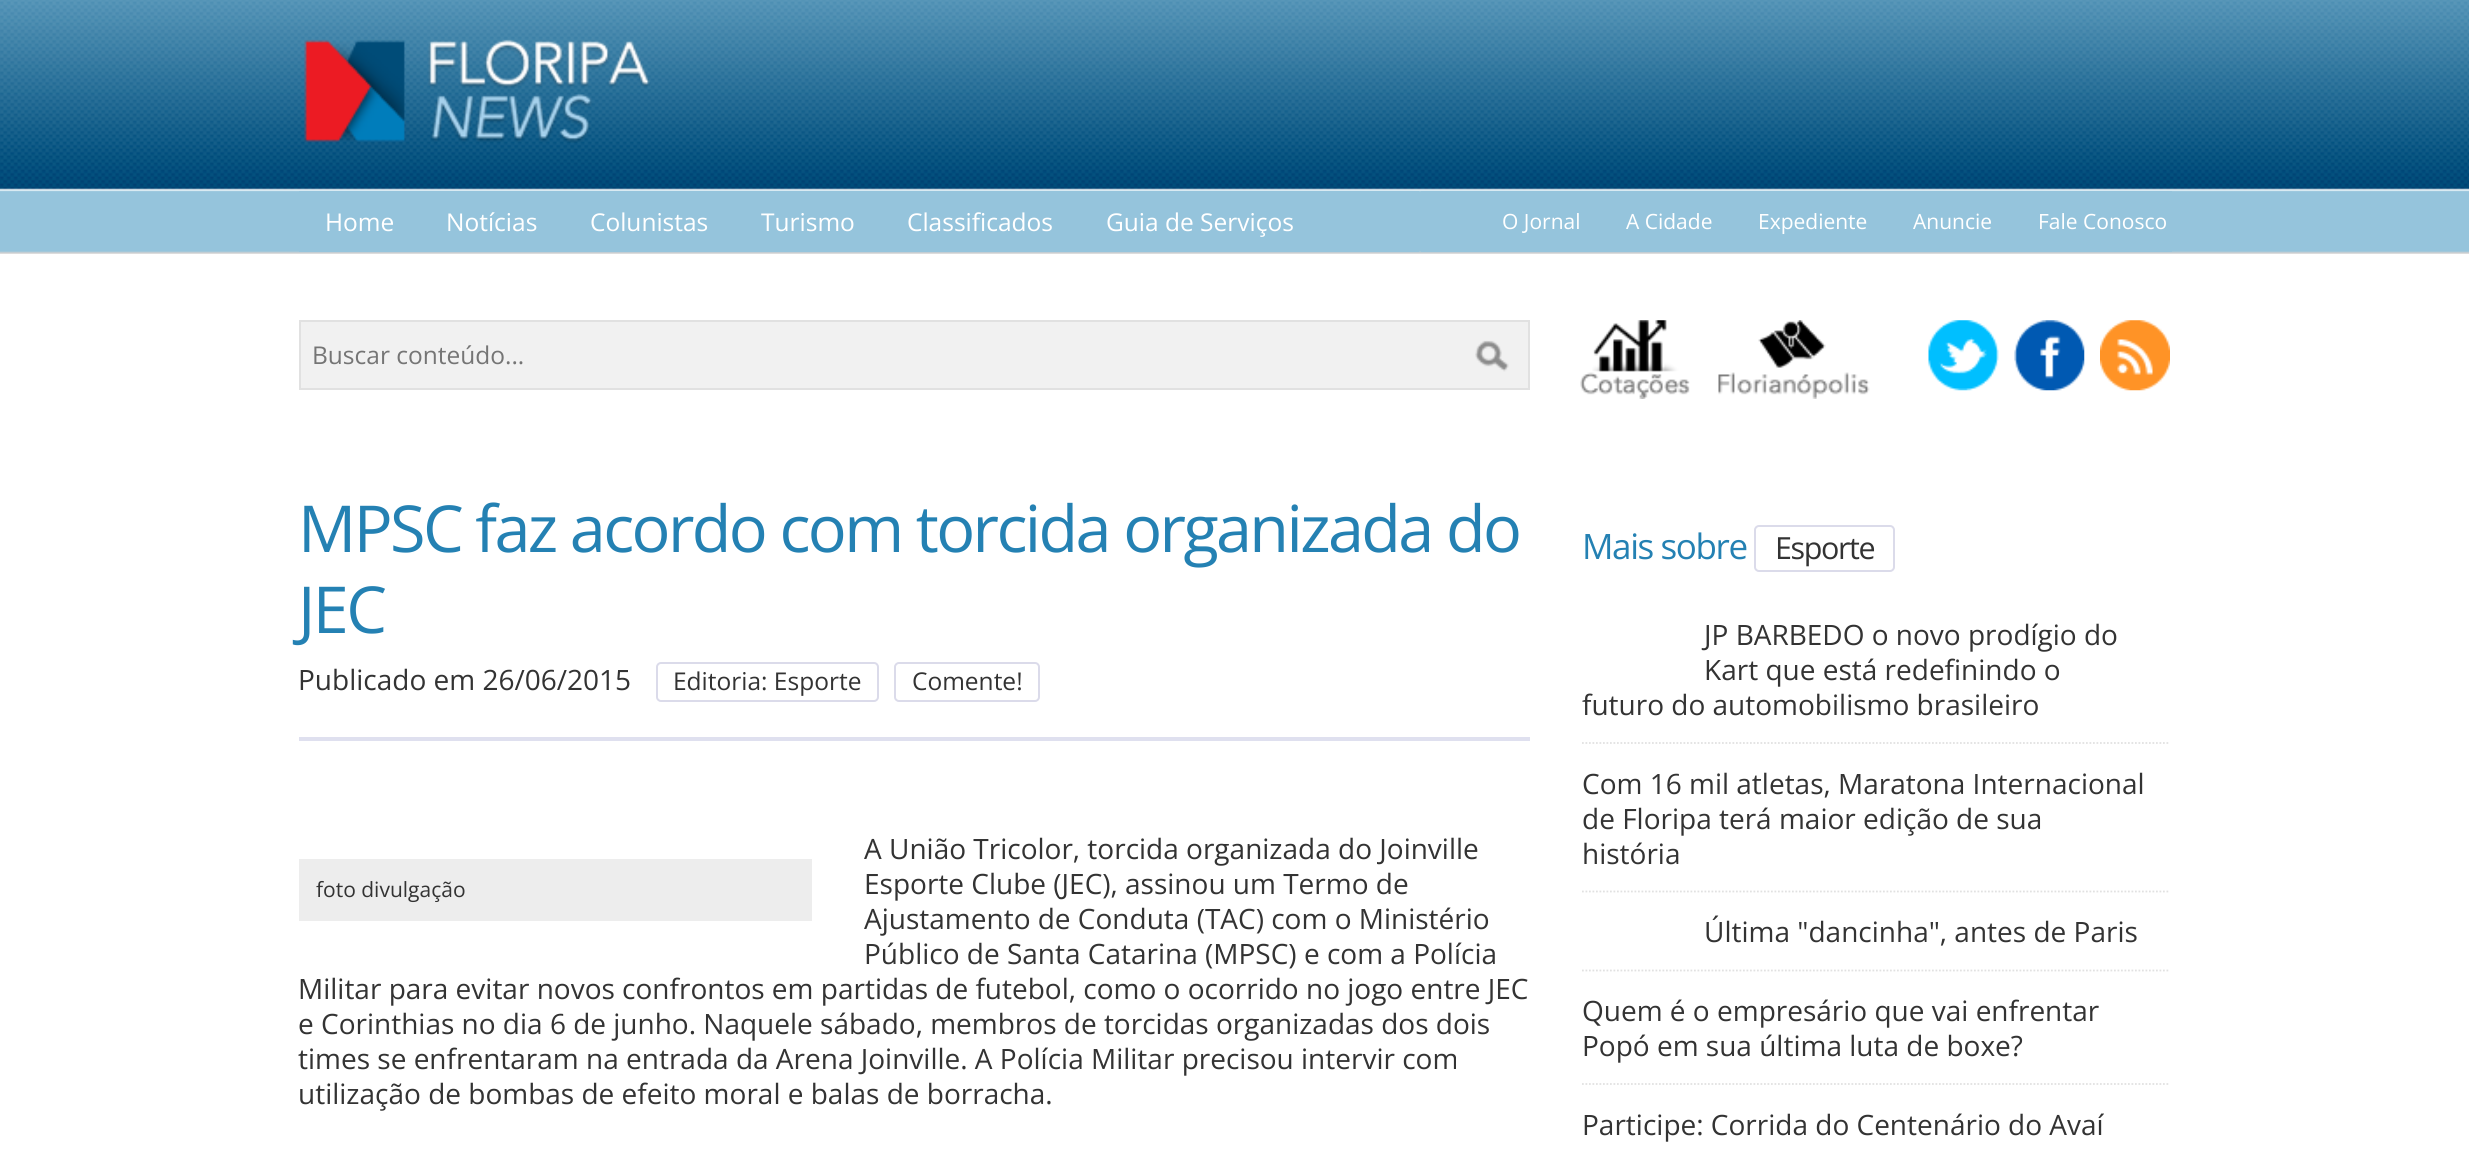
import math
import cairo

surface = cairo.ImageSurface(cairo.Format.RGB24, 2469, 1170)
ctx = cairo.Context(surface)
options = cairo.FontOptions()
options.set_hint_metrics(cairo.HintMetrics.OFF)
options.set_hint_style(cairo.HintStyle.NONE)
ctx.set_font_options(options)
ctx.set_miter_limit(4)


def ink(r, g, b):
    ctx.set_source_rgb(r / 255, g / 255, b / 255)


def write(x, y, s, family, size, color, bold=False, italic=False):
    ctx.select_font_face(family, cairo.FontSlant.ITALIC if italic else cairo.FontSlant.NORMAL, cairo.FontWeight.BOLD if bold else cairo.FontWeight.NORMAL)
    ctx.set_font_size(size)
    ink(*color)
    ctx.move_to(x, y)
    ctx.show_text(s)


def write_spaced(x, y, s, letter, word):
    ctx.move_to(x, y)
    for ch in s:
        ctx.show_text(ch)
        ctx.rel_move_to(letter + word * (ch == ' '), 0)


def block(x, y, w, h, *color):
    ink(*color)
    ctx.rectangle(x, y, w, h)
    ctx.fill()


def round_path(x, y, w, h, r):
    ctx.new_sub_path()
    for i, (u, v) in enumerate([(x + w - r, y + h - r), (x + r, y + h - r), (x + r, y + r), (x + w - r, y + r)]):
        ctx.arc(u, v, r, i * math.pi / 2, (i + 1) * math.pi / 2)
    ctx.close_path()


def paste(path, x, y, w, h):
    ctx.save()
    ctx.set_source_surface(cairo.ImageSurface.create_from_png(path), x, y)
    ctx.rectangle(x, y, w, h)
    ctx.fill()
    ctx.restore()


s1 = dict(family="Open Sans", size=24.5, color=(255, 255, 255))
s2 = dict(family="Open Sans", size=21, color=(255, 255, 255))
s3 = dict(family="Open Sans", size=24.5, color=(117, 117, 117))
s4 = dict(family="Open Sans", size=28, color=(51, 51, 51))
s5 = dict(family="Open Sans", size=24.5, color=(51, 51, 51))
s6 = dict(family="Open Sans", size=21, color=(51, 51, 51))

ink(255, 255, 255)
ctx.paint()
paste("pic1.png", 0, 0, 2469, 254)
paste("pic2.png", 304, 39, 346, 104)
block(299, 191, 1120, 61, 149, 196, 220)
write(325, 231, "Home", **s1)
write(446, 231, "Notícias", **s1)
write(590, 231, "Colunistas", **s1)
write(761, 231, "Turismo", **s1)
write(907, 231, "Classificados", **s1)
write(1106, 231, "Guia de Serviços", **s1)
block(1421, 191, 751, 61, 149, 196, 220)
write(1502, 229, "O Jornal", **s2)
write(1626, 229, "A Cidade", **s2)
write(1758, 229, "Expediente", **s2)
write(1913, 229, "Anuncie", **s2)
write(2038, 229, "Fale Conosco", **s2)
block(301, 322, 1227, 66, 241, 241, 241)
paste("pic3.png", 1475, 340, 34, 32)
ctx.rectangle(300, 321, 1229, 68)
ink(225, 225, 225)
ctx.stroke()
write(312, 364, "Buscar conteúdo...", **s3)
paste("pic4.png", 1580, 320, 110, 79)
paste("pic5.png", 1718, 320, 152, 79)
paste("pic6.png", 1928, 320, 71, 71)
paste("pic7.png", 2014, 320, 71, 71)
paste("pic8.png", 2100, 320, 70, 71)
ctx.set_font_size(64.75)
ink(36, 129, 179)
write_spaced(298, 552, "MPSC faz acordo com torcida organizada do", -2.6, 0)
write_spaced(298, 633, "JEC", -2.6, 0)
write(298, 690, "Publicado em 26/06/2015", **s4)
round_path(657, 663, 221, 38, 4)
ink(219, 219, 234)
ctx.stroke()
write(673, 690, "Editoria: Esporte", **s5)
round_path(895, 663, 144, 38, 4)
ink(219, 219, 234)
ctx.stroke()
write(912, 690, "Comente!", **s5)
block(299, 737, 1231, 4, 223, 224, 239)
write(864, 859, "A União Tricolor, torcida organizada do Joinville", **s4)
write(864, 894, "Esporte Clube (JEC), assinou um Termo de", **s4)
write(864, 929, "Ajustamento de Conduta (TAC) com o Ministério", **s4)
write(864, 964, "Público de Santa Catarina (MPSC) e com a Polícia", **s4)
write(298, 999, "Militar para evitar novos confrontos em partidas de futebol, como o ocorrido no jogo entre JEC", **s4)
write(298, 1034, "e Corinthias no dia 6 de junho. Naquele sábado, membros de torcidas organizadas dos dois", **s4)
write(298, 1069, "times se enfrentaram na entrada da Arena Joinville. A Polícia Militar precisou intervir com", **s4)
write(298, 1104, "utilização de bombas de efeito moral e balas de borracha.", **s4)
block(299, 859, 513, 62, 237, 237, 237)
write(316, 897, "foto divulgação", **s6)
ctx.set_font_size(35)
ink(36, 129, 179)
write_spaced(1582, 559, "Mais sobre", -1.4, 0)
round_path(1755, 526, 139, 45, 4)
ink(219, 219, 234)
ctx.stroke()
ctx.set_font_size(30.5)
ink(51, 51, 51)
write_spaced(1775, 559, "Esporte", -1.4, 0)
ctx.new_path()
ctx.move_to(1582, 743)
ctx.line_to(2170, 743)
ink(225, 225, 225)
ctx.set_line_width(1.8)
ctx.set_dash([1.75, 1.75])
ctx.stroke()
write(1704, 645, "JP BARBEDO o novo prodígio do", **s4)
write(1704, 680, "Kart que está redefinindo o", **s4)
write(1582, 715, "futuro do automobilismo brasileiro", **s4)
ctx.new_path()
ctx.move_to(1582, 891.5)
ctx.line_to(2170, 891.5)
ink(225, 225, 225)
ctx.stroke()
write(1582, 794, "Com 16 mil atletas, Maratona Internacional", **s4)
write(1582, 829, "de Floripa terá maior edição de sua", **s4)
write(1582, 864, "história", **s4)
ctx.new_path()
ctx.move_to(1582, 970.5)
ctx.line_to(2170, 970.5)
ink(225, 225, 225)
ctx.stroke()
write(1704, 942, "Última \"dancinha\", antes de Paris", **s4)
ctx.new_path()
ctx.move_to(1582, 1084)
ctx.line_to(2170, 1084)
ink(225, 225, 225)
ctx.stroke()
write(1582, 1021, "Quem é o empresário que vai enfrentar", **s4)
write(1582, 1056, "Popó em sua última luta de boxe?", **s4)
write(1582, 1135, "Participe: Corrida do Centenário do Avaí", **s4)
surface.write_to_png("screenshot.png")
